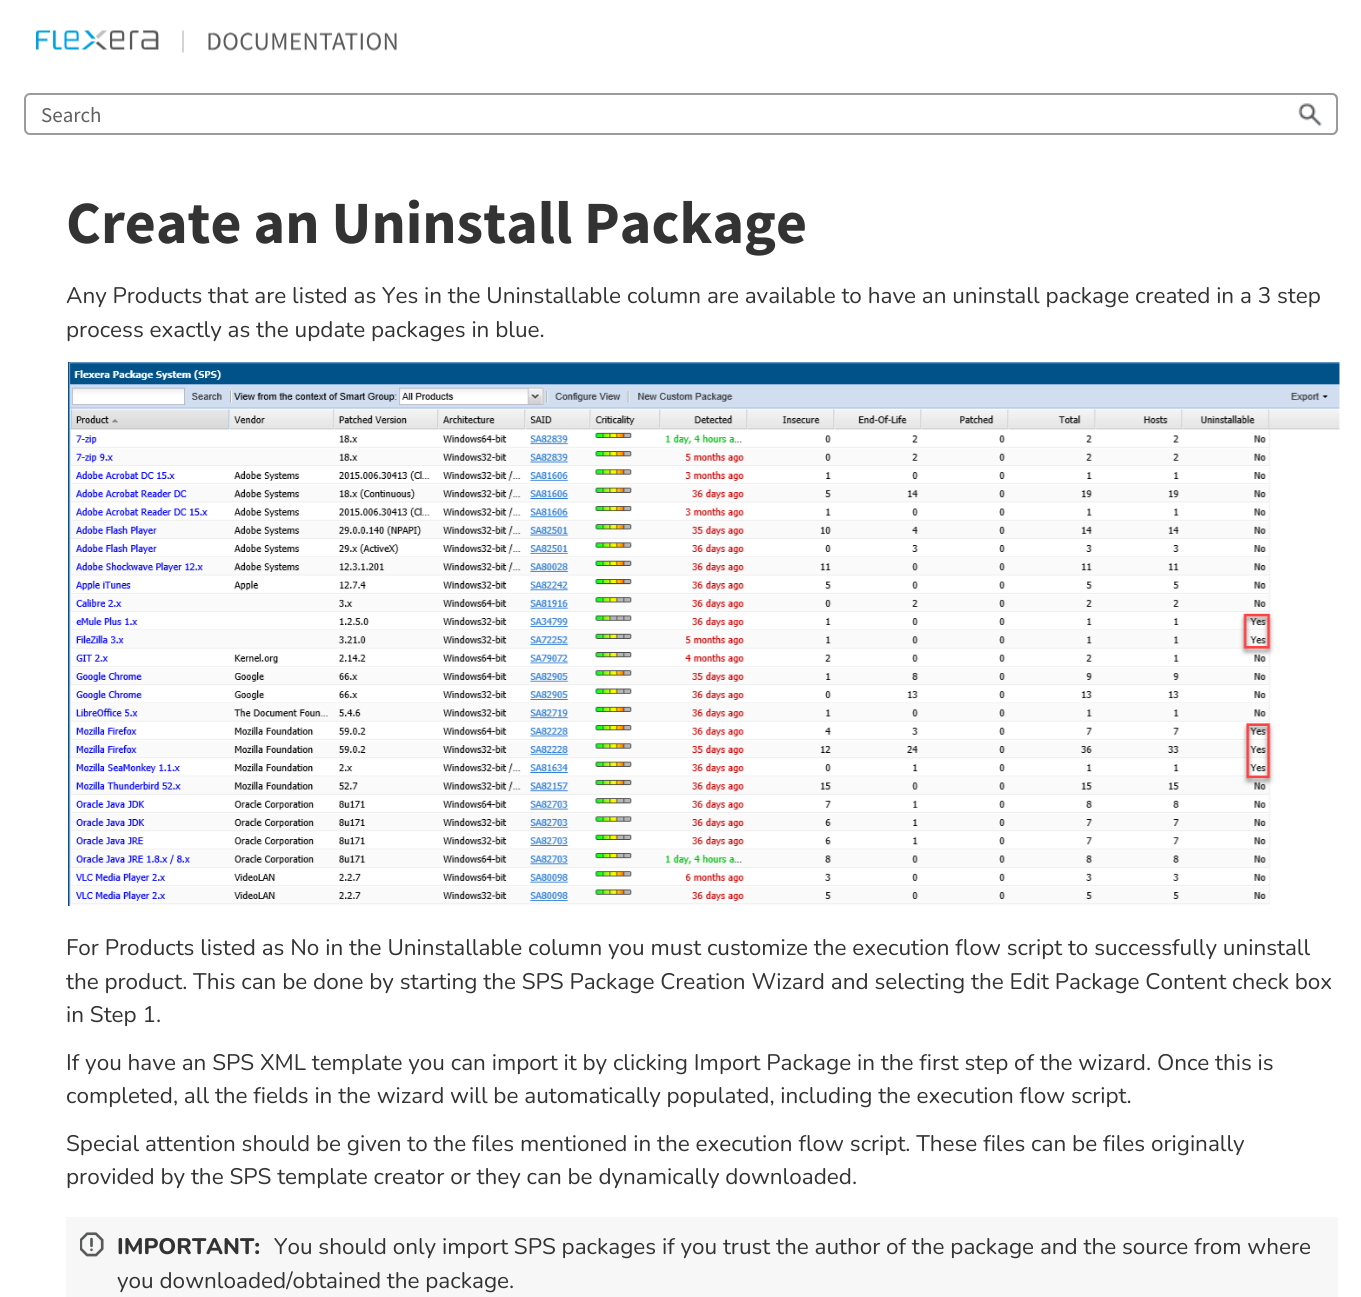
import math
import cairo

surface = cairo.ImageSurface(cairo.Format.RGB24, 1361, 1297)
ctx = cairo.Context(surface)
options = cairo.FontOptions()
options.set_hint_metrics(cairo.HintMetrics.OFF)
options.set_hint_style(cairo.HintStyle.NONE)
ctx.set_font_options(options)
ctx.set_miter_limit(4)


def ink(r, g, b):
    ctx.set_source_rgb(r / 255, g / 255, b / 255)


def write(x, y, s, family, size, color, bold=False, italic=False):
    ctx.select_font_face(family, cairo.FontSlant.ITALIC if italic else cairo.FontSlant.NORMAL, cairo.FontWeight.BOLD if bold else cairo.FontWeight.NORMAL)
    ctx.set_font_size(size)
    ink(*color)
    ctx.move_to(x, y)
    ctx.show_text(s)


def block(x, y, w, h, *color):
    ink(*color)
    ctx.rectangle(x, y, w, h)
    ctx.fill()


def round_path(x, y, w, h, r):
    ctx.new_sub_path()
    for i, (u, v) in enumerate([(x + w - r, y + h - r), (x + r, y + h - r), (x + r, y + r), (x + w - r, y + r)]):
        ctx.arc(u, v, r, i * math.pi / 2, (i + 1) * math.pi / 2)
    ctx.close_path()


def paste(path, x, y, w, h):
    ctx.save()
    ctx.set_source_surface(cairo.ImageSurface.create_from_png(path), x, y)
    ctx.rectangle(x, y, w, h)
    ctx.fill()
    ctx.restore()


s1 = dict(family="Source Sans Pro", size=21, color=(95, 95, 95))
s2 = dict(family="Source Sans Pro", size=60, color=(51, 51, 51), bold=True)
s3 = dict(family="Nunito", size=22.5, color=(51, 51, 51))
s4 = dict(family="Nunito ExtraBold", size=22.5, color=(51, 51, 51))

ink(255, 255, 255)
ctx.paint()
paste("pic1.png", 36, 30, 361, 23)
round_path(25, 94, 1312, 40, 5)
ink(155, 155, 155)
ctx.stroke()
write(41, 122, "Search", **s1)
paste("pic2.png", 1298, 103, 24, 24)
ink(155, 155, 155)
ctx.set_fill_rule(cairo.FillRule.EVEN_ODD)
ctx.new_path()
ctx.move_to(1284, 93)
ctx.line_to(1332, 93)
ctx.curve_to(1335, 93, 1338, 96, 1338, 99)
ctx.line_to(1338, 129)
ctx.curve_to(1338, 132, 1335, 135, 1332, 135)
ctx.line_to(1284, 135)
ctx.close_path()
ctx.move_to(1284, 94)
ctx.line_to(1332, 94)
ctx.curve_to(1334, 94, 1336, 97, 1336, 99)
ctx.line_to(1336, 129)
ctx.curve_to(1336, 131, 1334, 134, 1332, 134)
ctx.line_to(1284, 134)
ctx.close_path()
ctx.fill()
write(66, 243, "Create an Uninstall Package", **s2)
write(66, 303, "Any Products that are listed as Yes in the Uninstallable column are available to have an uninstall package created in a 3 step", **s3)
write(66, 337, "process exactly as the update packages in blue.", **s3)
paste("pic3.png", 68, 362, 1272, 544)
write(66, 955, "For Products listed as No in the Uninstallable column you must customize the execution flow script to successfully uninstall", **s3)
write(66, 989, "the product. This can be done by starting the SPS Package Creation Wizard and selecting the Edit Package Content check box", **s3)
write(66, 1022, "in Step 1.", **s3)
write(66, 1070, "If you have an SPS XML template you can import it by clicking Import Package in the first step of the wizard. Once this is", **s3)
write(66, 1103, "completed, all the fields in the wizard will be automatically populated, including the execution flow script.", **s3)
write(66, 1151, "Special attention should be given to the files mentioned in the execution flow script. These files can be files originally", **s3)
write(66, 1184, "provided by the SPS template creator or they can be dynamically downloaded.", **s3)
block(66, 1217, 1272, 80, 247, 247, 247)
paste("pic4.png", 80, 1232, 24, 25)
write(117, 1254, "IMPORTANT:", **s4)
write(274, 1254, "You should only import SPS packages if you trust the author of the package and the source from where", **s3)
write(117, 1288, "you downloaded/obtained the package.", **s3)
surface.write_to_png("screenshot.png")
